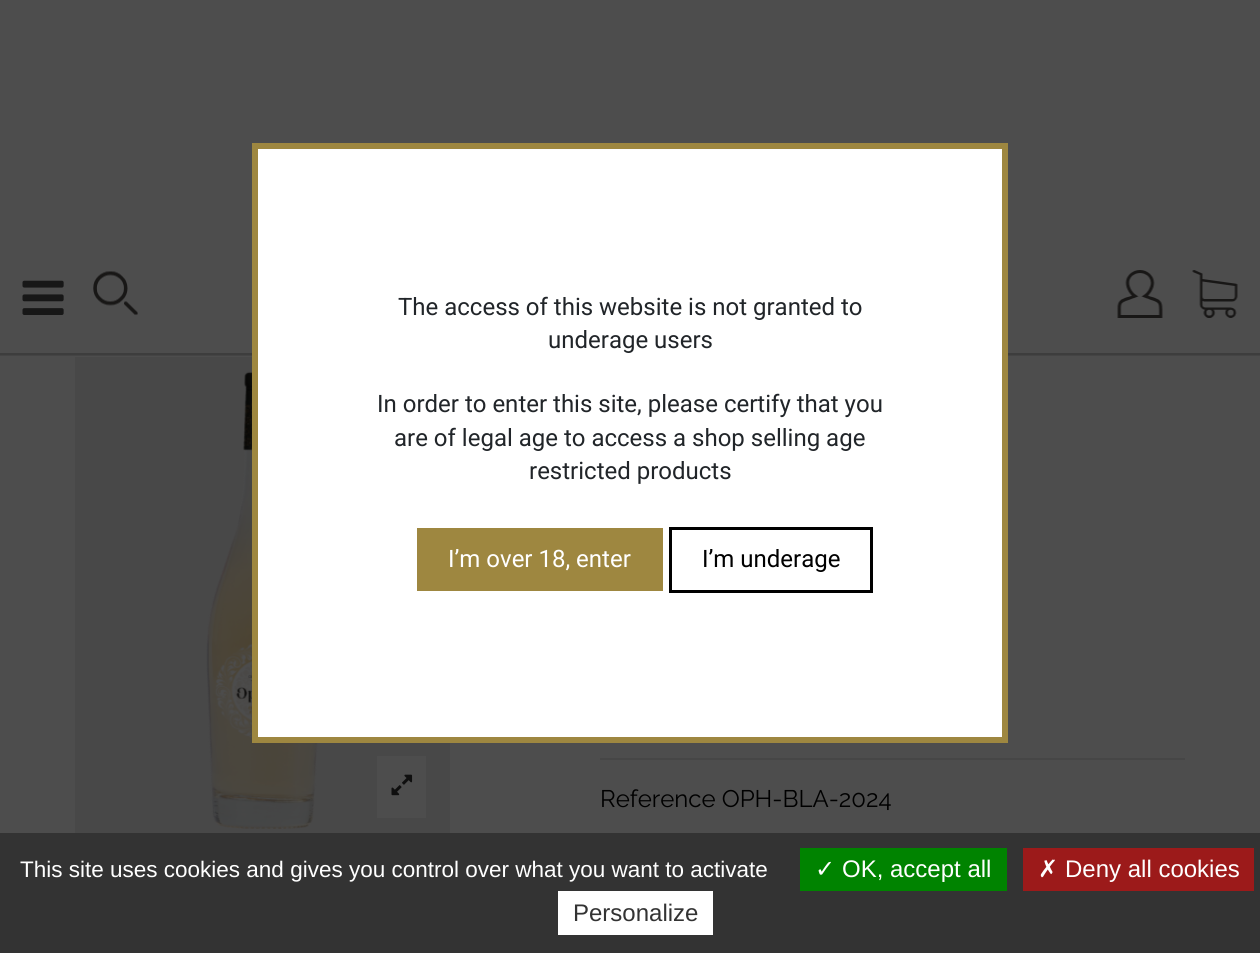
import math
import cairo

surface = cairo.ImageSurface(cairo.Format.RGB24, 1260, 953)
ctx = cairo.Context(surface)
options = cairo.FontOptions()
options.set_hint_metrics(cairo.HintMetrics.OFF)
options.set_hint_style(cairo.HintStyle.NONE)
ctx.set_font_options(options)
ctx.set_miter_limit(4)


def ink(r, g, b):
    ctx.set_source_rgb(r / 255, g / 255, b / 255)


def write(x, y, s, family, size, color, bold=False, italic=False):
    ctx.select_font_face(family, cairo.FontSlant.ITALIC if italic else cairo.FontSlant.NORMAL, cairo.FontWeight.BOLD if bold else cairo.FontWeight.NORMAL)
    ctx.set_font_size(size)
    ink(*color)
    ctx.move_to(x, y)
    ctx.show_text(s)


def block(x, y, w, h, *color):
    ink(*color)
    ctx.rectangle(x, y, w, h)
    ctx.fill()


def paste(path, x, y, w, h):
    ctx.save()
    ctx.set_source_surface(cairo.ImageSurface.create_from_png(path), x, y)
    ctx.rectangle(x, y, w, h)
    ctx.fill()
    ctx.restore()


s1 = dict(family="Roboto", size=24, color=(33, 37, 41))
s2 = dict(family="Roboto", size=24, color=(255, 255, 255))
s3 = dict(family="Roboto", size=24, color=(0, 0, 0))
s4 = dict(family="Raleway", size=24, color=(0, 0, 0))
s5 = dict(family="Liberation Sans", size=22.5, color=(255, 255, 255))
s6 = dict(family="DejaVu Sans", size=24, color=(255, 255, 255))
s7 = dict(family="Liberation Sans", size=24, color=(255, 255, 255))
s8 = dict(family="Liberation Sans", size=24, color=(51, 51, 51))

ink(77, 77, 77)
ctx.paint()
block(0, 355, 1260, 1, 68, 68, 68)
block(0, 353, 1260, 2, 61, 61, 61)
paste("pic1.png", 22, 280, 42, 35)
paste("pic2.png", 93, 271, 45, 45)
paste("pic3.png", 1117, 270, 46, 48)
paste("pic4.png", 1192, 270, 46, 48)
block(75, 357, 375, 476, 72, 72, 72)
paste("pic5.png", 206, 371, 112, 458)
ink(255, 255, 255)
ctx.rectangle(255, 146, 750, 594)
ctx.fill_preserve()
ink(158, 135, 64)
ctx.set_line_width(6)
ctx.stroke()
write(398, 315, "The access of this website is not granted to", **s1)
write(548, 348, "underage users", **s1)
write(377, 412, "In order to enter this site, please certify that you", **s1)
write(394, 446, "are of legal age to access a shop selling age", **s1)
write(529, 479, "restricted products", **s1)
block(417, 528, 246, 63, 158, 135, 64)
write(448, 567, "I’m over 18, enter", **s2)
ctx.rectangle(670.5, 528.5, 201, 63)
ink(0, 0, 0)
ctx.set_line_width(3)
ctx.stroke()
write(702, 567, "I’m underage", **s3)
block(377, 756, 49, 62, 77, 77, 77)
paste("pic6.png", 391, 774, 22, 22)
block(600, 758, 585, 2, 70, 70, 70)
write(600, 807, "Reference OPH-BLA-2024", **s4)
block(0, 833, 1260, 120, 51, 51, 51)
write(20, 877, "This site uses cookies and gives you control over what you want to activate", **s5)
block(800, 848, 207, 43, 0, 131, 0)
write(815, 877, "✓", **s6)
write(842, 877, "OK, accept all", **s7)
block(1023, 848, 231, 43, 156, 26, 26)
write(1038, 877, "✗", **s6)
write(1065, 877, "Deny all cookies", **s7)
block(558, 891, 155, 44, 255, 255, 255)
write(573, 921, "Personalize", **s8)
surface.write_to_png("screenshot.png")
